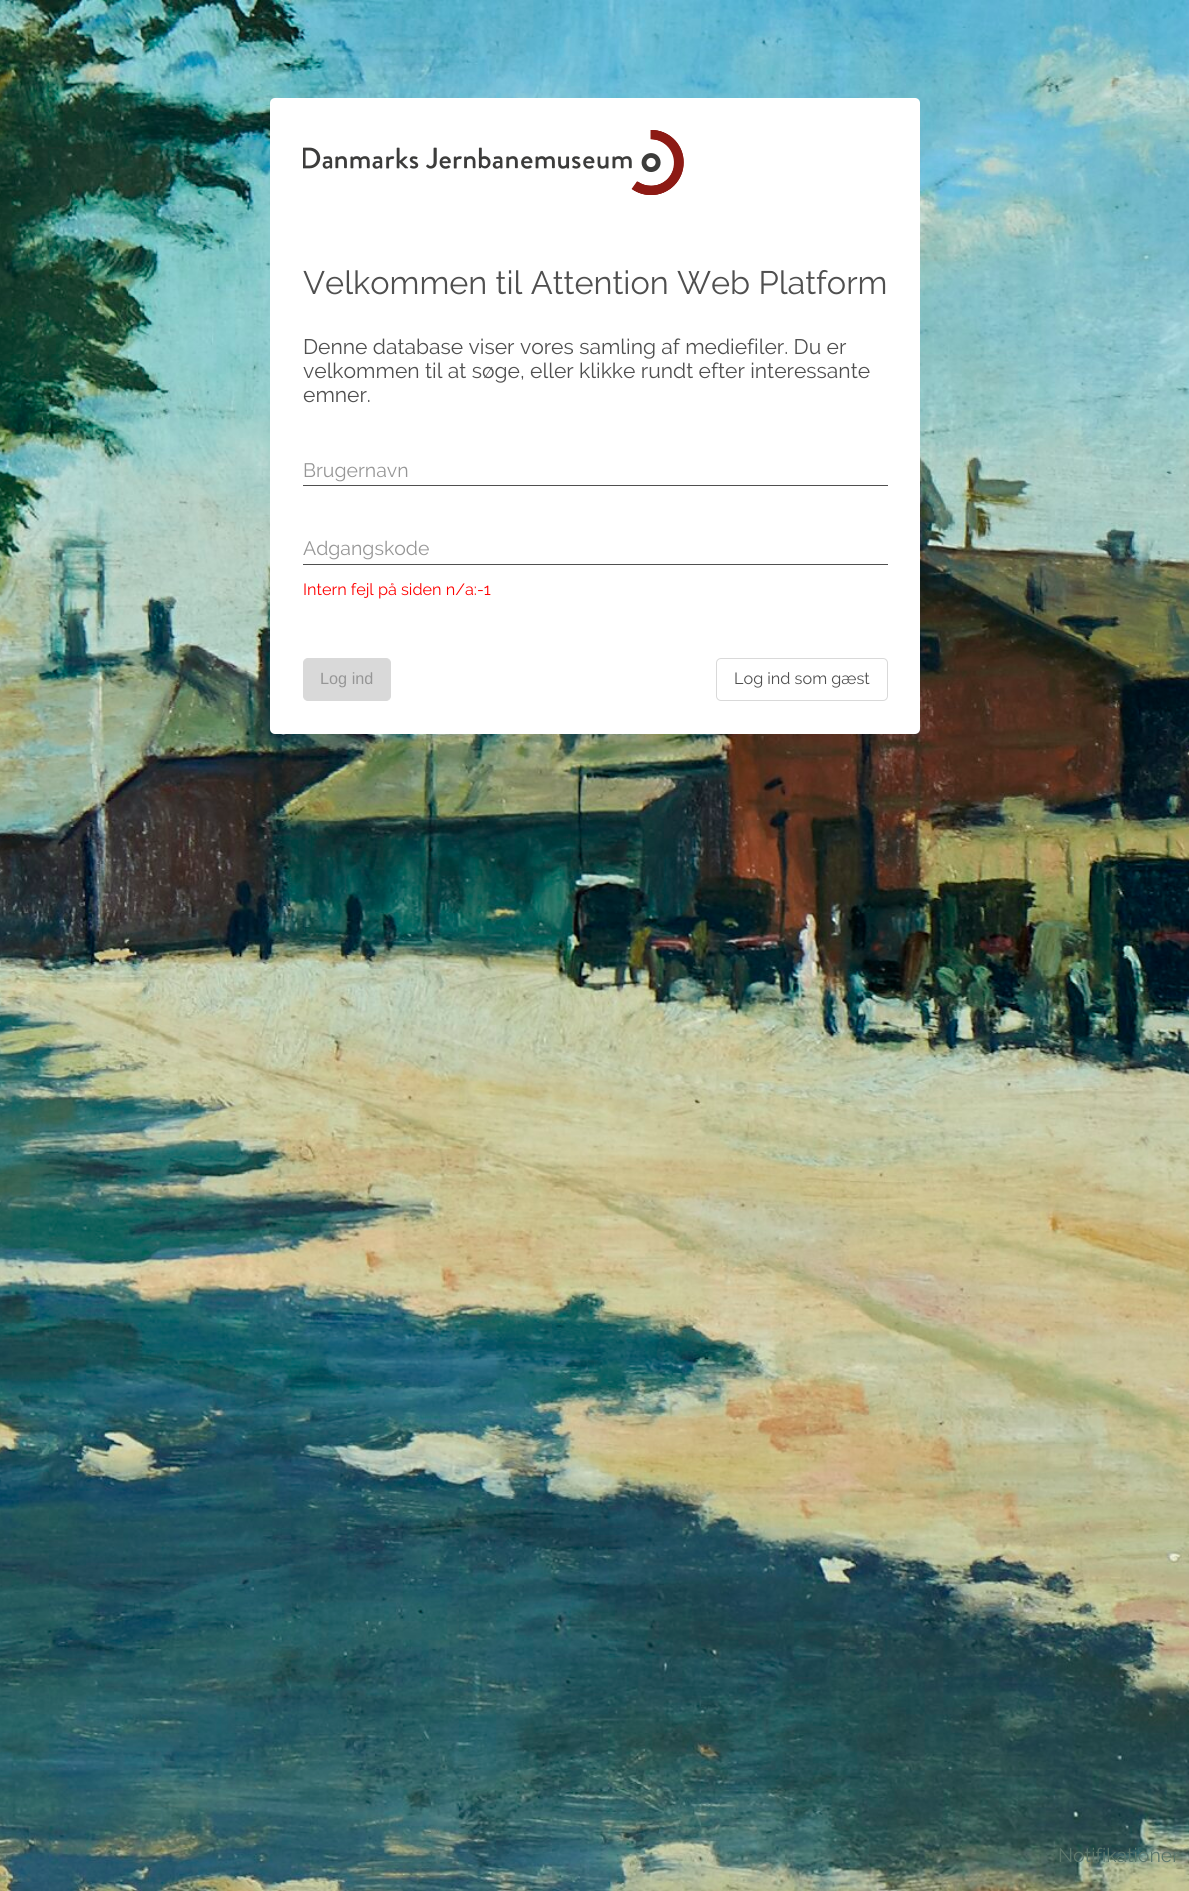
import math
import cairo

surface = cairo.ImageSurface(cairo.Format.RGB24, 1189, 1891)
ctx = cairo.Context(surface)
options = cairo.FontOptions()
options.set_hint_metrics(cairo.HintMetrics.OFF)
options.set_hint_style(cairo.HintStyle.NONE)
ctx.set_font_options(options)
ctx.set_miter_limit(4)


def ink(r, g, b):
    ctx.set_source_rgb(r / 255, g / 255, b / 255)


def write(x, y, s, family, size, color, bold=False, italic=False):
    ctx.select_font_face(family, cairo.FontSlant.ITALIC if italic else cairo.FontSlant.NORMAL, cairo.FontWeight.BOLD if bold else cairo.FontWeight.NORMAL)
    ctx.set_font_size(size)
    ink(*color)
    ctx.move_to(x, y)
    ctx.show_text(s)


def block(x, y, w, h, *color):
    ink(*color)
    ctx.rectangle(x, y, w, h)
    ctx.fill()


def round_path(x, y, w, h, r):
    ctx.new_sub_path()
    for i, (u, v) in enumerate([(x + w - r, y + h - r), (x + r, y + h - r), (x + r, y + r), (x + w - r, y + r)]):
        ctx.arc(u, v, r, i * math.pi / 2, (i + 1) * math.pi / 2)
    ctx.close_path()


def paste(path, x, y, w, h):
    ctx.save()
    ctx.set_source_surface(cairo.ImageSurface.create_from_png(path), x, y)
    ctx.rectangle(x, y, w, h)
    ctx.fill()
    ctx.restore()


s1 = dict(family="Raleway", size=32.5, color=(79, 79, 79))
s2 = dict(family="Raleway", size=21.1, color=(79, 79, 79))
s3 = dict(family="Raleway", size=19.5, color=(150, 150, 150))
s4 = dict(family="Raleway", size=16.25, color=(255, 0, 0))
s5 = dict(family="Liberation Sans", size=16.25, color=(150, 150, 150))
s6 = dict(family="Raleway", size=16.25, color=(79, 79, 79))
s7 = dict(family="Raleway", size=19.5, color=(92, 119, 108))

ink(255, 255, 255)
ctx.paint()
paste("pic1.png", 0, 0, 1189, 1891)
ink(255, 255, 255)
round_path(270, 98, 650, 636, 5)
ctx.fill()
paste("pic2.png", 303, 130, 381, 65)
write(303, 294, "Velkommen til Attention Web Platform", **s1)
write(303, 354, "Denne database viser vores samling af mediefiler. Du er", **s2)
write(303, 378, "velkommen til at søge, eller klikke rundt efter interessante", **s2)
write(303, 402, "emner.", **s2)
write(303, 477, "Brugernavn", **s3)
block(303, 485, 585, 1, 79, 79, 79)
write(303, 555, "Adgangskode", **s3)
block(303, 564, 585, 1, 79, 79, 79)
write(303, 595, "Intern fejl på siden n/a:-1", **s4)
ink(217, 217, 217)
round_path(303.5, 658.5, 87, 42, 4.5)
ctx.fill_preserve()
ctx.set_line_width(1)
ctx.stroke()
write(320, 684, "Log ind", **s5)
round_path(716.5, 658.5, 171, 42, 4.5)
ink(217, 217, 217)
ctx.stroke()
write(734, 684, "Log ind som gæst", **s6)
write(1058, 1862, "Notifikationer", **s7)
surface.write_to_png("screenshot.png")
